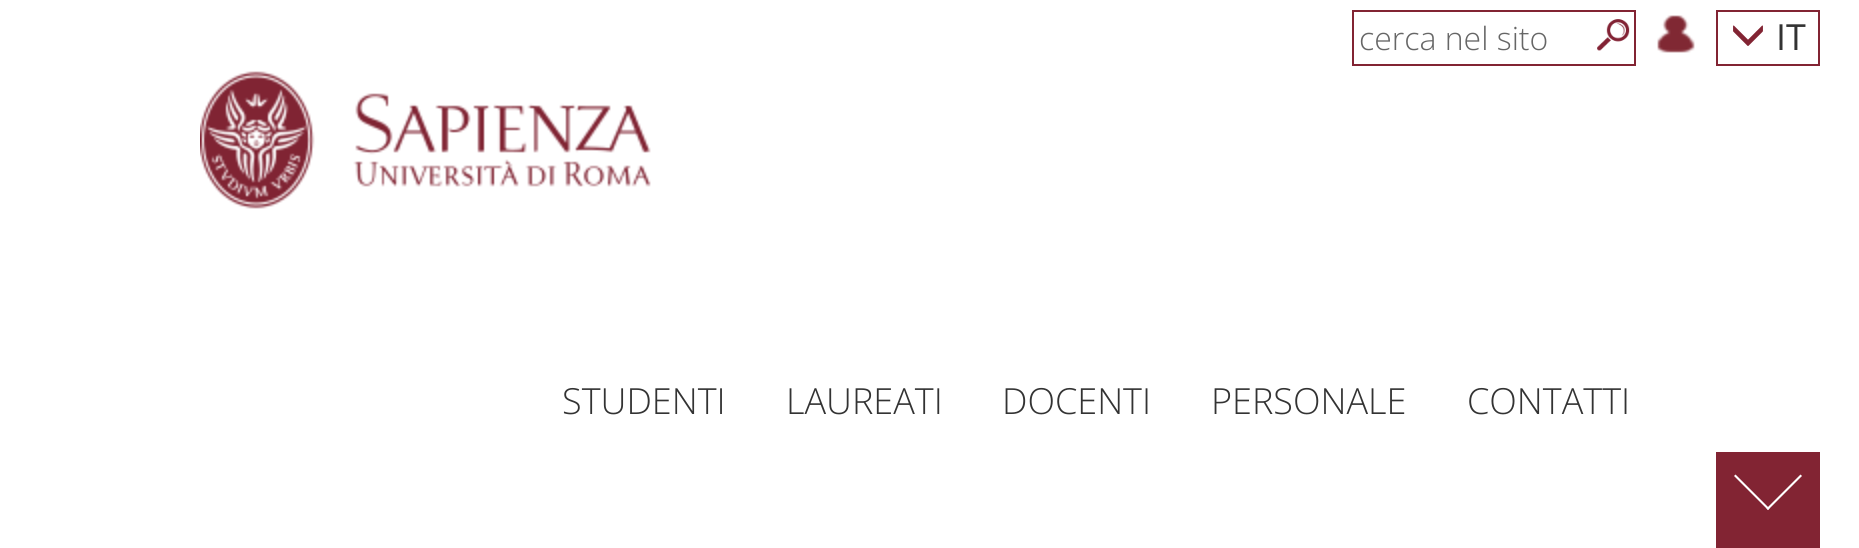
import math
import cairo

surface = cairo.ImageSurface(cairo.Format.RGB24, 1859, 548)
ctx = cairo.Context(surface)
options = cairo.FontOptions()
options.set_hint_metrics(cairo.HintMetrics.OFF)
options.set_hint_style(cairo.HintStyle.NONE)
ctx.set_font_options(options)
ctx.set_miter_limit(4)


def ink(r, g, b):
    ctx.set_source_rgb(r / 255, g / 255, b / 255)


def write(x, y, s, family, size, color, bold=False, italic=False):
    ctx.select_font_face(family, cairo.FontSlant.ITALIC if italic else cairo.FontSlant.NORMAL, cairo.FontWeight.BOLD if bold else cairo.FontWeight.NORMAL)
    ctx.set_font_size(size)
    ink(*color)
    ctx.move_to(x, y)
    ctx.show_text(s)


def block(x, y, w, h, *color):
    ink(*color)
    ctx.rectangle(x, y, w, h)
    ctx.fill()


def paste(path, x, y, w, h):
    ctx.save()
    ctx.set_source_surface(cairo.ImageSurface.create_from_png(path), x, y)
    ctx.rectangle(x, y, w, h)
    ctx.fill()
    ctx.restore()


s1 = dict(family="Open Sans Light", size=32, color=(102, 102, 102))
s2 = dict(family="Open Sans", size=36, color=(51, 51, 51))
s3 = dict(family="Open Sans Light", size=36, color=(51, 51, 51))

ink(255, 255, 255)
ctx.paint()
paste("pic1.png", 200, 71, 451, 138)
ctx.rectangle(1353, 11, 282, 54)
ink(130, 36, 51)
ctx.stroke()
write(1359, 50, "cerca nel sito", **s1)
paste("pic2.png", 1597, 19, 33, 32)
paste("pic3.png", 1657, 15, 38, 38)
ctx.rectangle(1717, 11, 102, 54)
ink(130, 36, 51)
ctx.stroke()
paste("pic4.png", 1733, 25, 30, 21)
write(1776, 50, "IT", **s2)
write(562, 414, "STUDENTI", **s3)
write(786, 414, "LAUREATI", **s3)
write(1002, 414, "DOCENTI", **s3)
write(1211, 414, "PERSONALE", **s3)
write(1467, 414, "CONTATTI", **s3)
block(1716, 452, 104, 96, 130, 36, 51)
ink(255, 255, 255)
ctx.new_path()
ctx.move_to(1766.5, 508.5)
ctx.line_to(1800.5, 474.5)
ctx.line_to(1802, 476)
ctx.line_to(1768, 510)
ctx.close_path()
ctx.fill()
ctx.new_path()
ctx.move_to(1734, 476)
ctx.line_to(1735.5, 474.5)
ctx.line_to(1769.5, 508.5)
ctx.line_to(1768, 510)
ctx.close_path()
ctx.fill()
surface.write_to_png("screenshot.png")
